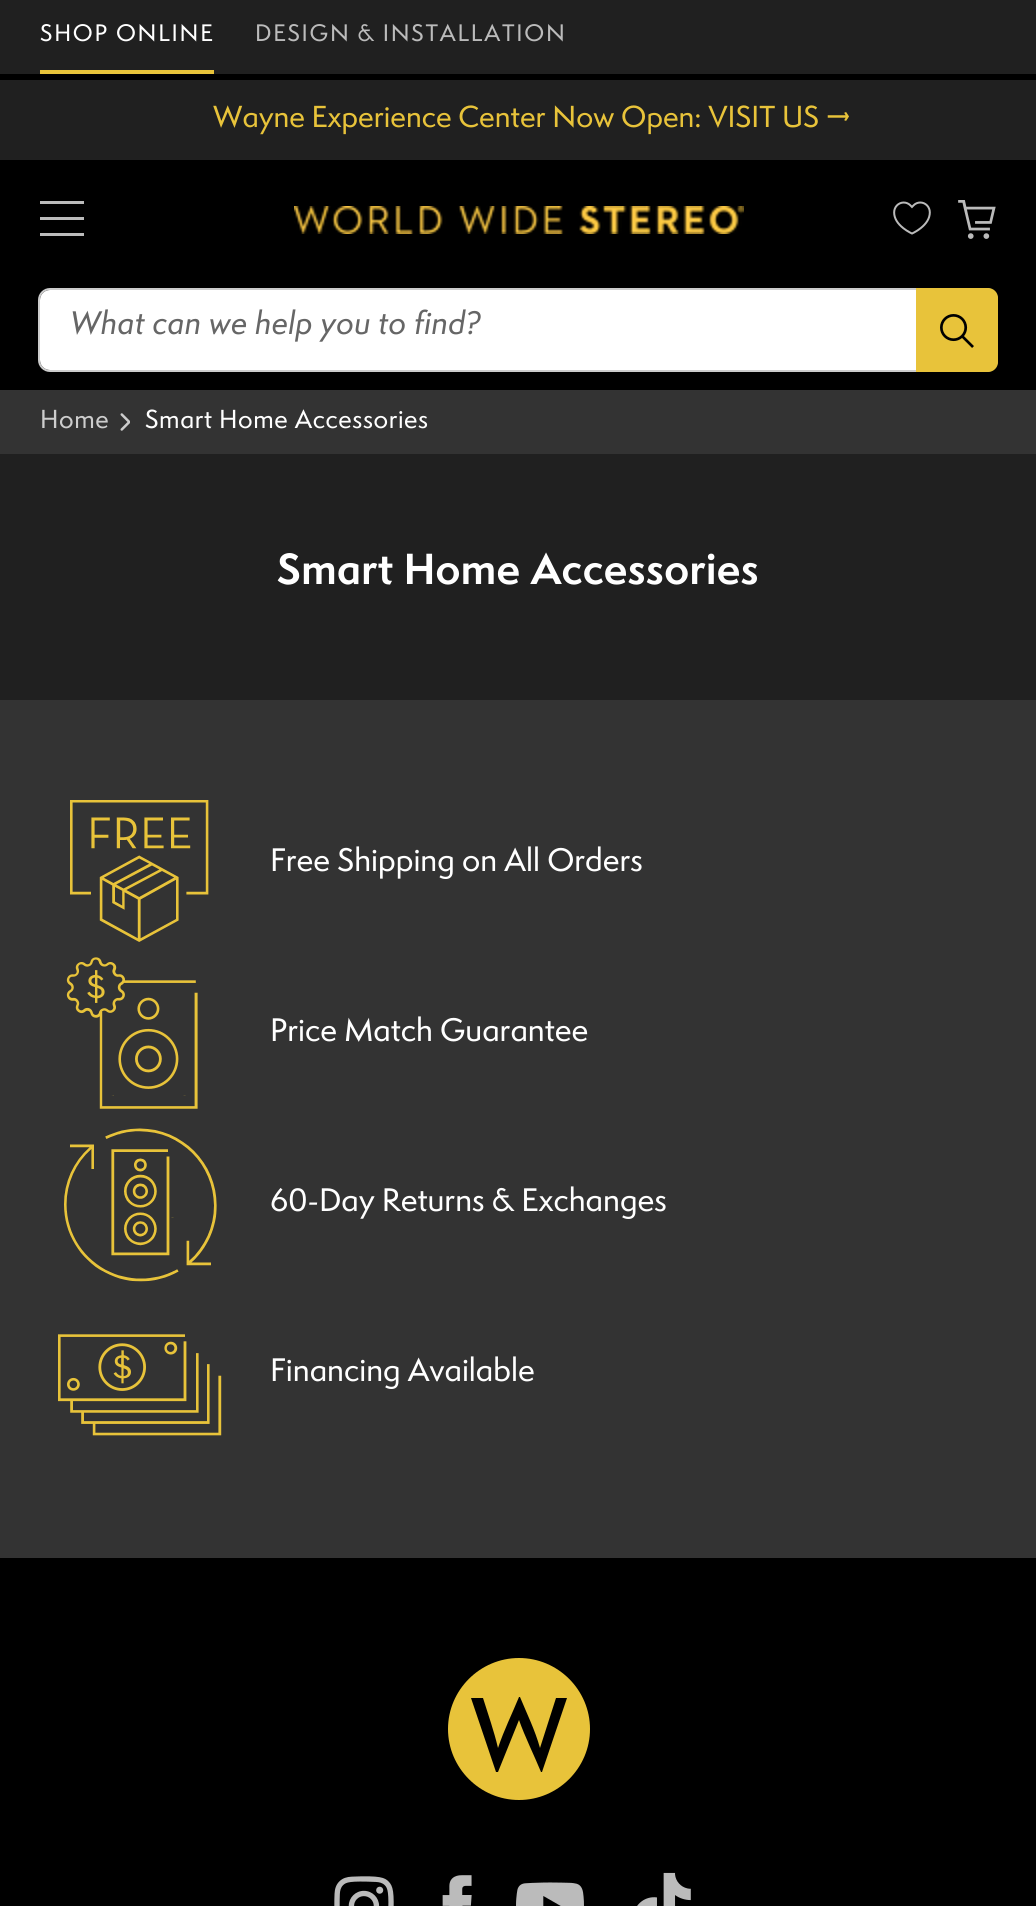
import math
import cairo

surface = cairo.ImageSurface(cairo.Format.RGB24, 1036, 1906)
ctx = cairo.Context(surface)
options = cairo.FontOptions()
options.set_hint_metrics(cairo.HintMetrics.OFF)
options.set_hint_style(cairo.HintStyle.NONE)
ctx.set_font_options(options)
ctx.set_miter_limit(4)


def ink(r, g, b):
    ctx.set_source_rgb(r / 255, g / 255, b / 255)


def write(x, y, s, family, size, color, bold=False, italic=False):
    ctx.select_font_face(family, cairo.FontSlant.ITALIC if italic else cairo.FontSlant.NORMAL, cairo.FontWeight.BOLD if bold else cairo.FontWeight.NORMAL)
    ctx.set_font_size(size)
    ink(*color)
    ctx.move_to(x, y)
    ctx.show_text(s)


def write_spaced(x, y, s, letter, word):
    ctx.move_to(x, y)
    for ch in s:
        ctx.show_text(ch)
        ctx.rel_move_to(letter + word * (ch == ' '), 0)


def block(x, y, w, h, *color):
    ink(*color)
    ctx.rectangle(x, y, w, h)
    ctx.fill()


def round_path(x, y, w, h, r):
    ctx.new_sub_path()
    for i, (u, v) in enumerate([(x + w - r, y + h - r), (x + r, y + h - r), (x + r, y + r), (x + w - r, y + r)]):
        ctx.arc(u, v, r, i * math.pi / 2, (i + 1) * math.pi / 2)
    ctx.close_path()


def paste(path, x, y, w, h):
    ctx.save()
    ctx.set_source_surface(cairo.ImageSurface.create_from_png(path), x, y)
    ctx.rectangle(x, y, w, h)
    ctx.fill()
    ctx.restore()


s1 = dict(family="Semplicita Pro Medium", size=28, color=(232, 195, 58))
s2 = dict(family="Semplicita Pro Medium", size=30, color=(255, 255, 255))

ink(51, 51, 51)
ctx.paint()
block(0, 0, 1036, 160, 32, 32, 32)
block(0, 74, 1036, 6, 0, 0, 0)
ctx.select_font_face("Semplicita Pro Medium")
ctx.set_font_size(22)
ink(255, 255, 255)
write_spaced(40, 41, "SHOP ONLINE", 1.75, 0)
block(40, 70, 174, 4, 232, 195, 58)
ink(187, 187, 187)
write_spaced(255, 41, "DESIGN & INSTALLATION", 1.75, 0)
write(213, 127, "Wayne Experience Center Now Open: VISIT US →", **s1)
block(0, 160, 1036, 230, 0, 0, 0)
paste("pic1.png", 40, 201, 44, 35)
paste("pic2.png", 294, 206, 450, 28)
paste("pic3.png", 893, 201, 38, 34)
paste("pic4.png", 958, 200, 38, 39)
round_path(39, 289, 958, 82, 11)
ink(204, 204, 204)
ctx.stroke()
ink(255, 255, 255)
round_path(40, 290, 956, 80, 10)
ctx.fill()
ctx.select_font_face("Semplicita Pro Medium", cairo.FontSlant.ITALIC)
ctx.set_font_size(30)
ink(102, 102, 102)
write_spaced(70, 334, "What can we help you to find?", 0.3, 0)
ink(232, 195, 58)
ctx.new_path()
ctx.move_to(917, 289)
ctx.line_to(988, 289)
ctx.curve_to(993, 289, 997, 293, 997, 298)
ctx.line_to(997, 362)
ctx.curve_to(997, 367, 993, 371, 988, 371)
ctx.line_to(917, 371)
ctx.close_path()
ctx.fill_preserve()
ctx.stroke()
paste("pic5.png", 940, 314, 34, 34)
ctx.select_font_face("Semplicita Pro Medium")
ctx.set_font_size(24)
ink(205, 205, 205)
write_spaced(40, 428, "Home", 0.6, 0)
paste("pic6.png", 120, 413, 10, 18)
ink(255, 255, 255)
write_spaced(145, 428, "Smart Home Accessories", 0.6, 0)
block(0, 454, 1036, 246, 32, 32, 32)
ctx.select_font_face("Semplicita Pro", cairo.FontSlant.NORMAL, cairo.FontWeight.BOLD)
ctx.set_font_size(40)
ink(255, 255, 255)
write_spaced(277, 584, "Smart Home Accessories", 0.4, 0)
paste("pic7.png", 70, 800, 139, 142)
write(270, 871, "Free Shipping on All Orders", **s2)
paste("pic8.png", 66, 957, 132, 152)
write(270, 1041, "Price Match Guarantee", **s2)
paste("pic9.png", 64, 1128, 153, 154)
write(270, 1211, "60-Day Returns & Exchanges", **s2)
paste("pic10.png", 58, 1334, 164, 102)
write(270, 1381, "Financing Available", **s2)
block(0, 1558, 1036, 348, 0, 0, 0)
ink(232, 195, 58)
ctx.new_path()
ctx.move_to(519, 1658)
ctx.curve_to(480, 1658, 448, 1690, 448, 1729)
ctx.curve_to(448, 1768, 480, 1800, 519, 1800)
ctx.curve_to(558, 1800, 590, 1768, 590, 1729)
ctx.curve_to(590, 1690, 558, 1658, 519, 1658)
ctx.close_path()
ctx.move_to(542, 1772)
ctx.line_to(541, 1772)
ctx.curve_to(534, 1755, 525, 1737, 519, 1720)
ctx.line_to(498, 1772)
ctx.line_to(496, 1772)
ctx.line_to(471, 1698)
ctx.line_to(483, 1698)
ctx.curve_to(488, 1714, 494, 1731, 498, 1748)
ctx.curve_to(504, 1730, 512, 1714, 519, 1697)
ctx.line_to(520, 1697)
ctx.curve_to(527, 1714, 535, 1730, 540, 1748)
ctx.line_to(556, 1698)
ctx.line_to(567, 1698)
ctx.close_path()
ctx.fill()
paste("pic11.png", 334, 1876, 60, 30)
paste("pic12.png", 442, 1875, 30, 31)
paste("pic13.png", 516, 1882, 68, 24)
paste("pic14.png", 637, 1872, 54, 34)
surface.write_to_png("screenshot.png")
